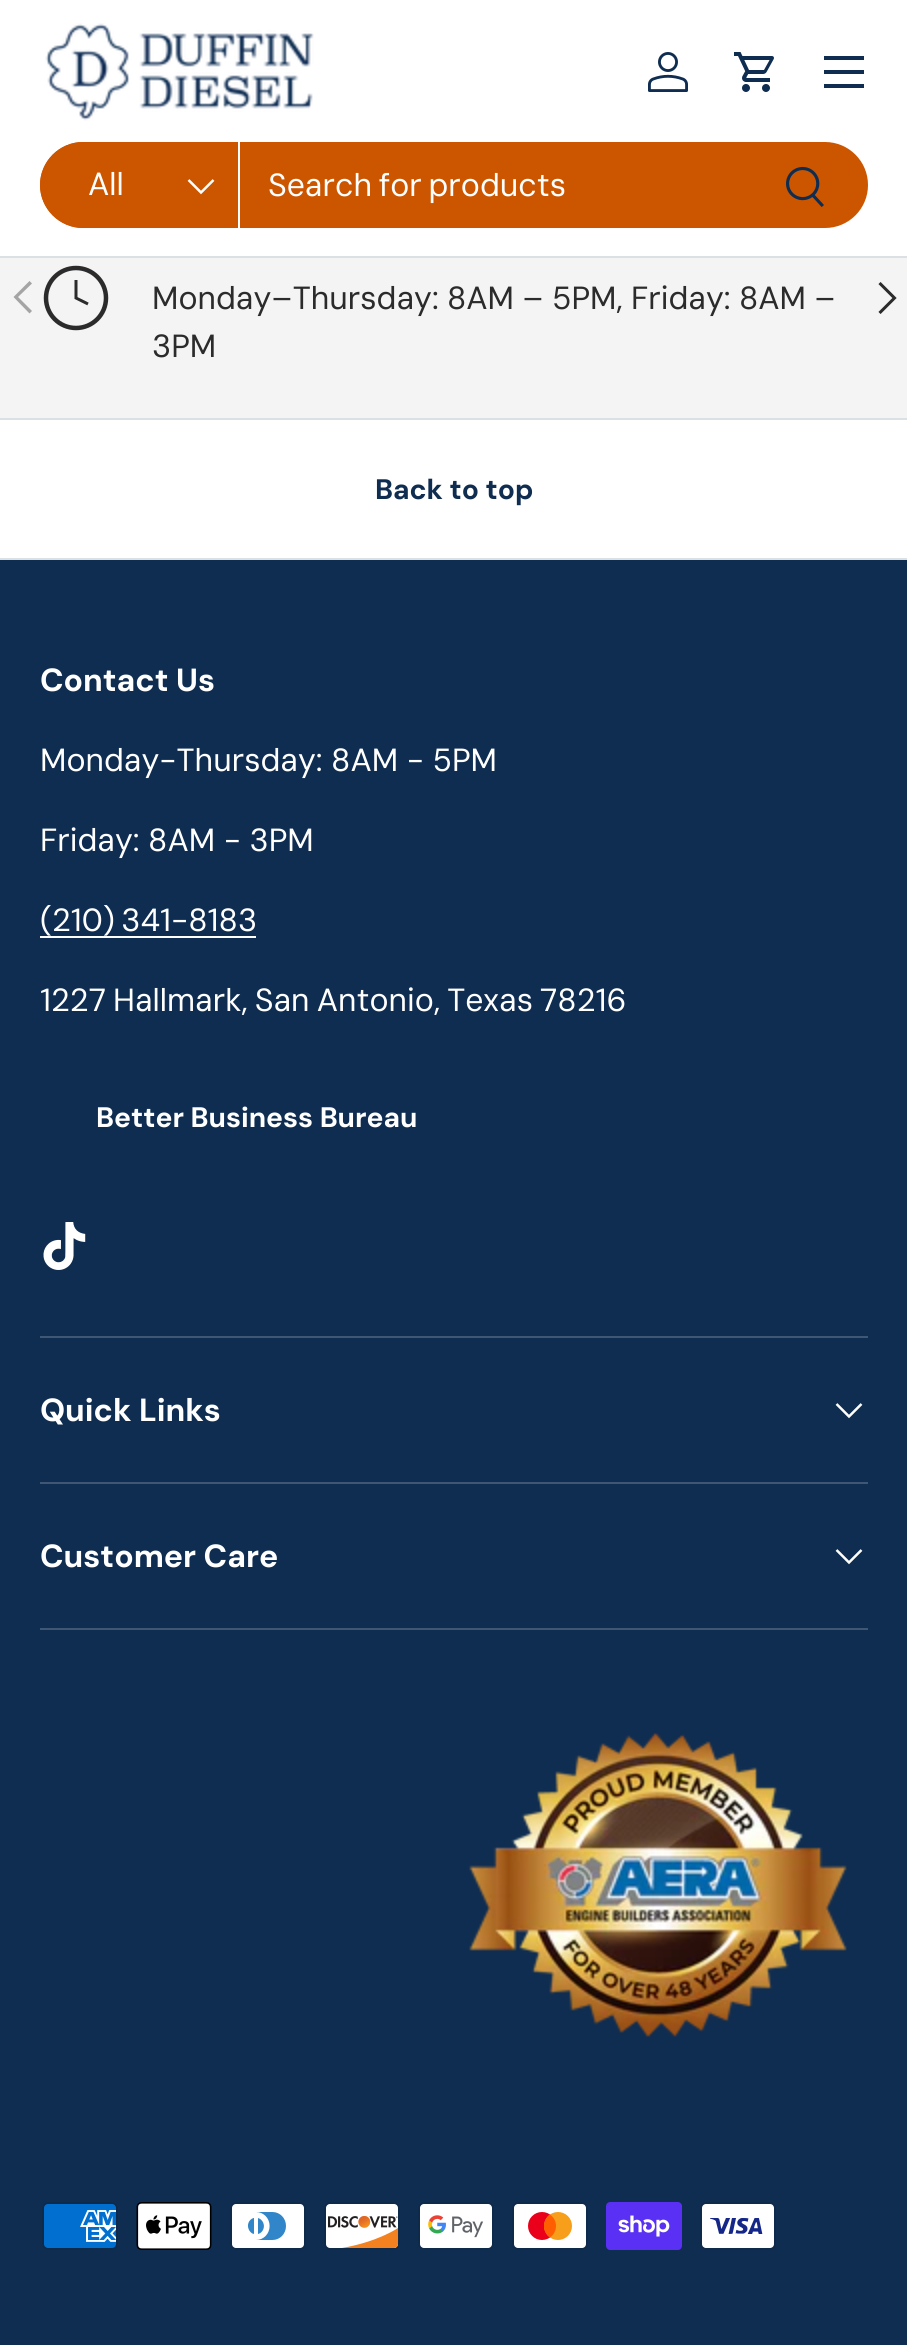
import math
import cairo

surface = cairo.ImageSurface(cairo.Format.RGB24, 907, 2345)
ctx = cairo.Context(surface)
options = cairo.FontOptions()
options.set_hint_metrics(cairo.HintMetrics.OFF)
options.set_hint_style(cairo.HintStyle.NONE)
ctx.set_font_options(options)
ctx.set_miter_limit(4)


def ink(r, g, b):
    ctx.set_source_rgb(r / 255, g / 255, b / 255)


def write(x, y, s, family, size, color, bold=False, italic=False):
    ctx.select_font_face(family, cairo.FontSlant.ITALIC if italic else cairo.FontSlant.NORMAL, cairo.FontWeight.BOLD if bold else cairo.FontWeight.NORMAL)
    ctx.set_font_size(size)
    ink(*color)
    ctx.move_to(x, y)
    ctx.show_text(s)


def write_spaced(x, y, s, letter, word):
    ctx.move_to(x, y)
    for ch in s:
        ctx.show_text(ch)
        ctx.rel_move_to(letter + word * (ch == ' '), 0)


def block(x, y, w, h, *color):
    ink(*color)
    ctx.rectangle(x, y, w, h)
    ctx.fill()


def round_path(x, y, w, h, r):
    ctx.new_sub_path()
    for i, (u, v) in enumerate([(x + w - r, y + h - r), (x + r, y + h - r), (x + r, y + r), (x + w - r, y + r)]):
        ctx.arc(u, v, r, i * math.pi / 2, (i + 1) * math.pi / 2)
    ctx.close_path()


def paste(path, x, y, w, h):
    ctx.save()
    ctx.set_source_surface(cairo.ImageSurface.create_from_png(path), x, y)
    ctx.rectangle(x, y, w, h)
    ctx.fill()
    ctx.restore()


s1 = dict(family="DM Sans", size=32, color=(255, 255, 255))
s2 = dict(family="DM Sans", size=32, color=(42, 43, 42))
s3 = dict(family="DM Sans", size=28.2, color=(15, 45, 81), bold=True)
s4 = dict(family="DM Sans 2", size=32, color=(255, 255, 255), bold=True)
s5 = dict(family="DM Sans", size=28.2, color=(255, 255, 255), bold=True)

ink(255, 255, 255)
ctx.paint()
block(0, 256, 907, 2, 219, 224, 229)
paste("pic1.png", 45, 23, 269, 98)
paste("pic2.png", 648, 52, 40, 40)
paste("pic3.png", 734, 52, 40, 40)
block(824, 56, 40, 4, 15, 45, 81)
block(824, 84, 40, 4, 15, 45, 81)
block(824, 70, 40, 4, 15, 45, 81)
ink(204, 85, 0)
round_path(40, 142, 828, 86, 43)
ctx.fill()
ctx.new_path()
ctx.move_to(83, 142)
ctx.line_to(240, 142)
ctx.line_to(240, 228)
ctx.line_to(83, 228)
ctx.curve_to(59.5, 228, 40, 208.5, 40, 185)
ctx.curve_to(40, 161.5, 59.5, 142, 83, 142)
ctx.close_path()
ctx.fill()
block(238, 142, 2, 86, 255, 255, 255)
write(88, 195, "All", **s1)
ctx.new_path()
ctx.move_to(213.5, 180)
ctx.line_to(201, 192.5)
ctx.line_to(188.5, 180)
ctx.set_line_width(2.5)
ctx.stroke()
write_spaced(268, 196, "Search for products", 0, -2)
paste("pic4.png", 786, 166, 38, 41)
block(0, 258, 907, 160, 244, 244, 244)
ink(163, 164, 163)
ctx.new_path()
ctx.move_to(13.5, 297)
ctx.line_to(29.5, 281)
ctx.line_to(32, 283.5)
ctx.line_to(18, 297)
ctx.line_to(32, 311)
ctx.line_to(29.5, 313.5)
ctx.close_path()
ctx.fill()
ctx.new_path()
ctx.move_to(879.5, 283)
ctx.line_to(894.5, 298)
ctx.line_to(879.5, 313)
ink(42, 43, 42)
ctx.set_line_width(3)
ctx.stroke()
ctx.arc(76, 298, 30, 0, 2 * math.pi)
ctx.set_line_width(4.5)
ctx.stroke()
ctx.new_path()
ctx.move_to(76, 280)
ctx.line_to(76, 298)
ctx.line_to(88, 304)
ctx.set_line_width(3)
ctx.stroke()
write_spaced(152, 309, "Monday–Thursday: 8AM – 5PM, Friday: 8AM –", 0, -0.25)
write(152, 357, "3PM", **s2)
block(0, 418, 907, 2, 219, 224, 229)
block(0, 558, 907, 2, 219, 224, 229)
write(375, 499, "Back to top", **s3)
block(0, 560, 907, 1785, 15, 45, 81)
write(40, 691, "Contact Us", **s4)
write(40, 771, "Monday-Thursday: 8AM - 5PM", **s1)
write(40, 851, "Friday: 8AM - 3PM", **s1)
write_spaced(40, 931, "(210) 341-8183", 0, -2)
block(40, 936, 216, 2, 255, 255, 255)
write_spaced(40, 1011, "1227 Hallmark, San Antonio, Texas 78216", 0, -1.5)
write(96, 1127, "Better Business Bureau", **s5)
paste("pic5.png", 43, 1222, 43, 48)
block(40, 1336, 828, 2, 63, 87, 116)
block(40, 1482, 828, 2, 63, 87, 116)
write(40, 1421, "Quick Links", **s4)
ctx.new_path()
ctx.move_to(861.5, 1404)
ctx.line_to(849, 1416.5)
ctx.line_to(836.5, 1404)
ctx.set_line_width(2.5)
ctx.stroke()
block(40, 1628, 828, 2, 63, 87, 116)
write(40, 1567, "Customer Care", **s4)
ctx.new_path()
ctx.move_to(861.5, 1550)
ctx.line_to(849, 1562.5)
ctx.line_to(836.5, 1550)
ctx.stroke()
paste("pic6.png", 469, 1732, 378, 306)
paste("pic7.png", 42, 2202, 76, 48)
paste("pic8.png", 136, 2202, 76, 48)
paste("pic9.png", 230, 2202, 76, 48)
paste("pic10.png", 324, 2202, 76, 48)
paste("pic11.png", 418, 2202, 76, 48)
paste("pic12.png", 512, 2202, 76, 48)
paste("pic13.png", 606, 2202, 76, 48)
paste("pic14.png", 700, 2202, 76, 48)
surface.write_to_png("screenshot.png")
